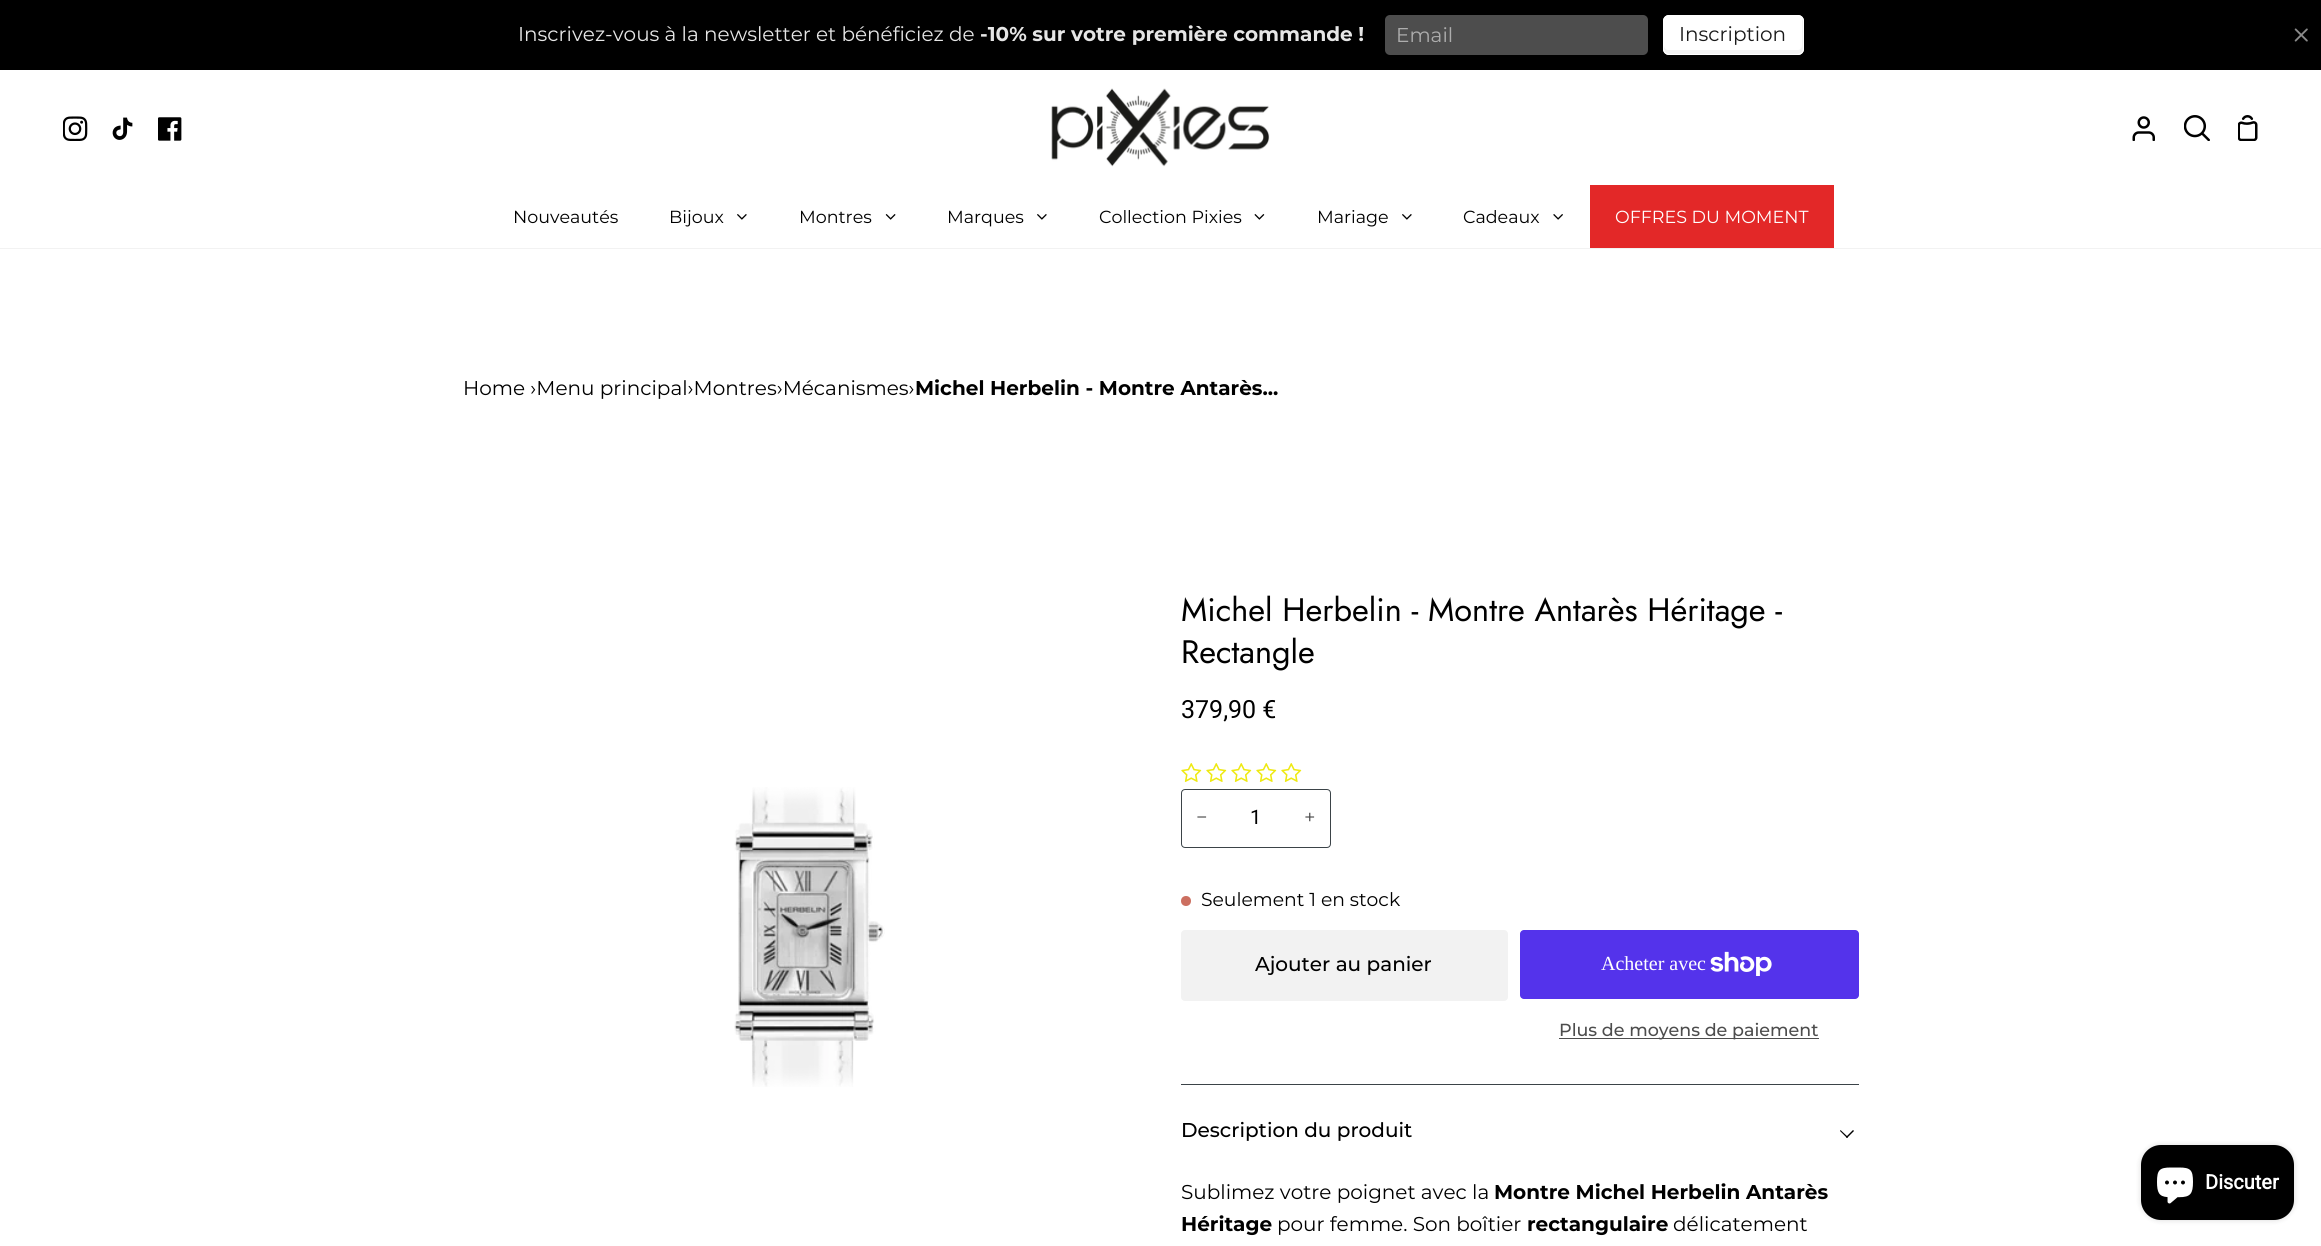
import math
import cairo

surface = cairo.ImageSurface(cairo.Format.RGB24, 2321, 1246)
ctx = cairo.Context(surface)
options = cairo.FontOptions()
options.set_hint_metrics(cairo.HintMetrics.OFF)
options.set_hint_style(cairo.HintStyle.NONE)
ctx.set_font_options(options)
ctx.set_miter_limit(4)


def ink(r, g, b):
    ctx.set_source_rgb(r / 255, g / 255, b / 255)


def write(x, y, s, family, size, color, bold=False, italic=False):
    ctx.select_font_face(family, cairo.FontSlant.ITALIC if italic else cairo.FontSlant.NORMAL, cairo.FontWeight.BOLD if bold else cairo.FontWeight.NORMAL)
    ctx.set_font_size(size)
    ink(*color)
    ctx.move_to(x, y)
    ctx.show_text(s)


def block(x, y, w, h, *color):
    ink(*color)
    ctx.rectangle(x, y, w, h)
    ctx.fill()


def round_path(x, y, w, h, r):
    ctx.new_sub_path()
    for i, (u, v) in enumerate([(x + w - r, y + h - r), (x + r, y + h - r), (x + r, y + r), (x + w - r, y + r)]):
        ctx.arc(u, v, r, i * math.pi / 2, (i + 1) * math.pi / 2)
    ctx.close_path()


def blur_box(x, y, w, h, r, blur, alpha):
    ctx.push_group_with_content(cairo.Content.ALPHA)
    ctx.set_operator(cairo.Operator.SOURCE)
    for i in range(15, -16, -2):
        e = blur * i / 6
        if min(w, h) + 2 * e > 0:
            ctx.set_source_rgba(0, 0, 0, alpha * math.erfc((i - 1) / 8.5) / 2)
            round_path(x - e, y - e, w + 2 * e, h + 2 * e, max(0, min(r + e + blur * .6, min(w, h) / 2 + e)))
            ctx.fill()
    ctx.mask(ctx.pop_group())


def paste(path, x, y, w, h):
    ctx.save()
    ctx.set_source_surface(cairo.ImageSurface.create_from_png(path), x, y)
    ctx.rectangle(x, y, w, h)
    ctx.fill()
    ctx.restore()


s1 = dict(family="Montserrat Thin", size=20, color=(230, 230, 230))
s2 = dict(family="Montserrat", size=20, color=(230, 230, 230), bold=True)
s3 = dict(family="Montserrat Thin", size=20, color=(173, 173, 173))
s4 = dict(family="Montserrat Thin", size=20, color=(26, 26, 26))
s5 = dict(family="Montserrat Thin", size=17.5, color=(0, 0, 0))
s6 = dict(family="Montserrat Thin", size=17.5, color=(255, 255, 255))
s7 = dict(family="Montserrat Thin", size=20, color=(0, 0, 0))
s8 = dict(family="Montserrat", size=20, color=(0, 0, 0), bold=True)
s9 = dict(family="Jost", size=32.5, color=(0, 0, 0))
s10 = dict(family="Roboto", size=25, color=(0, 0, 0))
s11 = dict(family="Montserrat Thin", size=20, color=(77, 77, 77))
s12 = dict(family="Roboto", size=20, color=(0, 0, 0))
s13 = dict(family="Montserrat Thin", size=18.75, color=(0, 0, 0))
s14 = dict(family="Montserrat Medium", size=20, color=(0, 0, 0))
s15 = dict(family="Liberation Serif", size=20, color=(255, 255, 255))
s16 = dict(family="Montserrat Medium", size=17.5, color=(77, 77, 77))
s17 = dict(family="Roboto", size=20, color=(255, 255, 255), bold=True)

ink(255, 255, 255)
ctx.paint()
block(0, 0, 2321, 70, 0, 0, 0)
write(518, 41, "Inscrivez-vous à la newsletter et bénéficiez de", **s1)
write(980, 41, "-10% sur votre première commande !", **s2)
ink(77, 77, 77)
round_path(1385, 15, 263, 40, 5)
ctx.fill()
write(1396, 42, "Email", **s3)
ink(255, 255, 255)
round_path(1663, 15, 141, 40, 6)
ctx.fill()
ink(242, 242, 242)
ctx.new_path()
ctx.move_to(1664, 45)
ctx.line_to(1664, 49)
ctx.curve_to(1664, 52, 1666, 54, 1669, 54)
ctx.line_to(1798, 54)
ctx.curve_to(1801, 54, 1803, 52, 1803, 49)
ctx.line_to(1803, 21)
ctx.curve_to(1803, 20, 1803, 19, 1802, 18)
ctx.line_to(1802, 45)
ctx.curve_to(1802, 48, 1800, 50, 1798, 50)
ctx.line_to(1668, 50)
ctx.curve_to(1666, 50, 1664, 48, 1664, 45)
ctx.close_path()
ctx.fill()
round_path(1663.5, 15.5, 140, 39, 5.5)
ink(255, 255, 255)
ctx.set_line_width(1)
ctx.stroke()
write(1679, 41, "Inscription", **s4)
paste("pic1.png", 2294, 28, 14, 14)
block(0, 248, 2321, 1, 242, 242, 242)
paste("pic2.png", 63, 116, 25, 25)
paste("pic3.png", 112, 117, 21, 23)
paste("pic4.png", 158, 117, 24, 24)
paste("pic5.png", 1051, 88, 219, 79)
paste("pic6.png", 2132, 116, 23, 25)
paste("pic7.png", 2184, 115, 26, 26)
paste("pic8.png", 2238, 115, 20, 26)
write(513, 223, "Nouveautés", **s5)
write(669, 223, "Bijoux", **s5)
paste("pic9.png", 737, 214, 10, 6)
write(799, 223, "Montres", **s5)
paste("pic10.png", 885, 214, 11, 6)
write(947, 223, "Marques", **s5)
paste("pic9.png", 1037, 214, 10, 6)
write(1099, 223, "Collection Pixies", **s5)
paste("pic11.png", 1254, 214, 11, 6)
write(1317, 223, "Mariage", **s5)
paste("pic9.png", 1402, 214, 10, 6)
write(1463, 223, "Cadeaux", **s5)
paste("pic12.png", 1553, 214, 10, 6)
block(1590, 185, 244, 63, 227, 40, 40)
write(1615, 223, "OFFRES DU MOMENT", **s6)
write(463, 395, "Home ›Menu principal›Montres›Mécanismes›", **s7)
write(915, 395, "Michel Herbelin - Montre Antarès...", **s8)
paste("pic13.png", 734, 787, 151, 300)
write(1181, 621, "Michel Herbelin - Montre Antarès Héritage -", **s9)
write(1181, 663, "Rectangle", **s9)
write(1181, 718, "379,90 €", **s10)
paste("pic14.png", 1181, 763, 21, 19)
paste("pic14.png", 1206, 763, 21, 19)
paste("pic14.png", 1231, 763, 21, 19)
paste("pic14.png", 1256, 763, 21, 19)
paste("pic14.png", 1281, 763, 21, 19)
round_path(1181.5, 789.5, 149, 58, 3.5)
ink(59, 67, 72)
ctx.stroke()
write(1196, 824, "−", **s11)
write(1250, 824, "1", **s12)
write(1304, 824, "+", **s11)
ink(204, 111, 96)
ctx.new_path()
ctx.arc(1186, 901, 5, 0, 2 * math.pi)
ctx.fill()
write(1201, 906, "Seulement 1 en stock", **s13)
ink(242, 242, 242)
round_path(1181, 930, 327, 71, 4)
ctx.fill()
write(1255, 971, "Ajouter au panier", **s14)
ink(84, 51, 235)
round_path(1520, 930, 339, 69, 4)
ctx.fill()
write(1601, 970, "Acheter avec", **s15)
paste("pic15.png", 1710, 951, 62, 25)
block(1559, 1038, 260, 1, 77, 77, 77)
write(1559, 1036, "Plus de moyens de paiement", **s16)
block(1181, 1084, 678, 1, 59, 67, 72)
write(1181, 1137, "Description du produit", **s14)
ctx.new_path()
ctx.move_to(1846, 1137)
ctx.line_to(1853, 1130)
ctx.line_to(1854, 1131)
ctx.line_to(1847, 1138)
ctx.close_path()
ctx.fill()
ctx.new_path()
ctx.move_to(1840, 1131)
ctx.line_to(1840.5, 1130)
ctx.line_to(1848, 1137)
ctx.line_to(1847, 1138)
ctx.close_path()
ctx.fill()
write(1181, 1199, "Sublimez votre poignet avec la", **s7)
write(1494, 1199, "Montre Michel Herbelin Antarès", **s8)
write(1181, 1231, "Héritage", **s8)
write(1277, 1231, "pour femme. Son boîtier", **s7)
write(1527, 1231, "rectangulaire", **s8)
write(1673, 1231, "délicatement", **s7)
ink(0, 0, 0)
blur_box(2141, 1145, 153, 75, 20, 3, 0.15)
ink(0, 0, 0)
round_path(2141, 1145, 153, 75, 20)
ctx.fill()
paste("pic16.png", 2157, 1167, 36, 37)
write(2205, 1189, "Discuter", **s17)
surface.write_to_png("screenshot.png")
